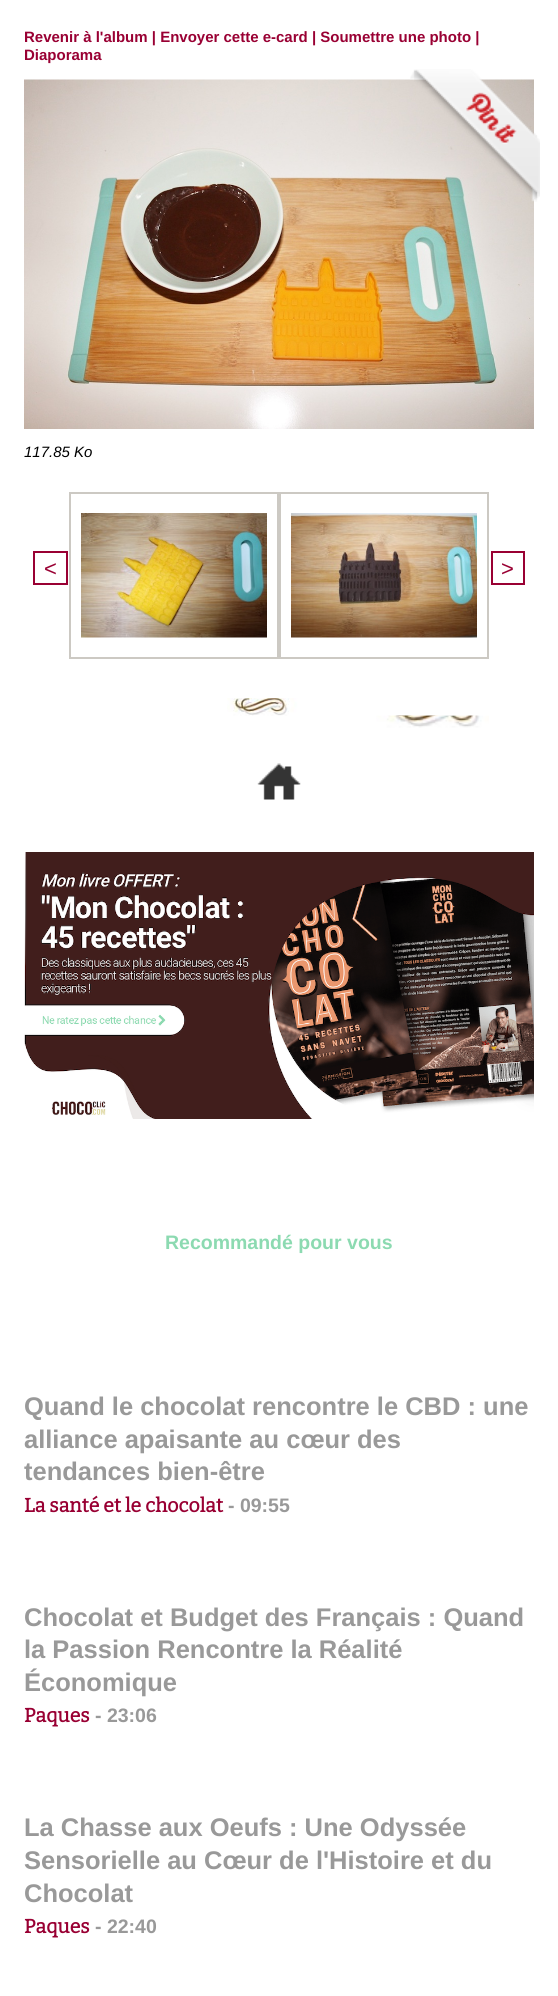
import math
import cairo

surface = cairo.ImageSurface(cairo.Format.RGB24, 558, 1996)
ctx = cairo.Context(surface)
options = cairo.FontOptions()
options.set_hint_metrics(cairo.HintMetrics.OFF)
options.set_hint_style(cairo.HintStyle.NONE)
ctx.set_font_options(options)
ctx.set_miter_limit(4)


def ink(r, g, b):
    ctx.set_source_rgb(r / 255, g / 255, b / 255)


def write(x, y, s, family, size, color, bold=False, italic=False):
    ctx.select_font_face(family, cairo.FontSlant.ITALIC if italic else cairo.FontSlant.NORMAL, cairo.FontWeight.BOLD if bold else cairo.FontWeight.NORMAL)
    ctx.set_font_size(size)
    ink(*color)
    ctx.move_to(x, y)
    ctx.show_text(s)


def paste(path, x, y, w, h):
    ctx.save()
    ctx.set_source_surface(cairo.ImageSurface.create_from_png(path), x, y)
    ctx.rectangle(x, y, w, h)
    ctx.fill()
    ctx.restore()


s1 = dict(family="Liberation Sans", size=15, color=(153, 0, 51), bold=True)
s2 = dict(family="Liberation Sans", size=15, color=(0, 0, 0), italic=True)
s3 = dict(family="Liberation Sans", size=22, color=(153, 0, 51))
s4 = dict(family="Liberation Sans", size=19.5, color=(140, 218, 177), bold=True)
s5 = dict(family="Liberation Sans", size=25.5, color=(153, 153, 153), bold=True)
s6 = dict(family="Bitter", size=19.5, color=(153, 0, 51), bold=True)
s7 = dict(family="Liberation Sans", size=19.5, color=(153, 153, 153), bold=True)

ink(255, 255, 255)
ctx.paint()
write(24, 42, "Revenir à l'album | Envoyer cette e-card | Soumettre une photo |", **s1)
write(24, 60, "Diaporama", **s1)
paste("pic2.png", 24, 79, 510, 350)
paste("pic1.png", 410, 69, 130, 133)
write(24, 457, "117.85 Ko", **s2)
ctx.rectangle(34, 552, 33, 32)
ink(153, 0, 51)
ctx.stroke()
write(44, 576, "<", **s3)
paste("pic3.png", 81, 513, 186, 125)
ctx.rectangle(70, 493, 208, 165)
ink(204, 201, 195)
ctx.stroke()
paste("pic4.png", 291, 513, 186, 125)
ctx.rectangle(280, 493, 208, 165)
ctx.stroke()
ctx.rectangle(492, 552, 32, 32)
ink(153, 0, 51)
ctx.stroke()
write(501, 576, ">", **s3)
paste("pic5.png", 376, 715, 113, 13)
paste("pic6.png", 227, 698, 262, 18)
paste("pic7.png", 257, 763, 44, 37)
paste("pic8.png", 24, 852, 510, 267)
write(165, 1249, "Recommandé pour vous", **s4)
write(24, 1415, "Quand le chocolat rencontre le CBD : une", **s5)
write(24, 1448, "alliance apaisante au cœur des", **s5)
write(24, 1480, "tendances bien-être", **s5)
write(24, 1512, "La santé et le chocolat", **s6)
write(228, 1512, "- 09:55", **s7)
write(24, 1626, "Chocolat et Budget des Français : Quand", **s5)
write(24, 1658, "la Passion Rencontre la Réalité", **s5)
write(24, 1691, "Économique", **s5)
write(24, 1722, "Paques", **s6)
write(95, 1722, "- 23:06", **s7)
write(24, 1836, "La Chasse aux Oeufs : Une Odyssée", **s5)
write(24, 1869, "Sensorielle au Cœur de l'Histoire et du", **s5)
write(24, 1902, "Chocolat", **s5)
write(24, 1933, "Paques", **s6)
write(95, 1933, "- 22:40", **s7)
surface.write_to_png("screenshot.png")
